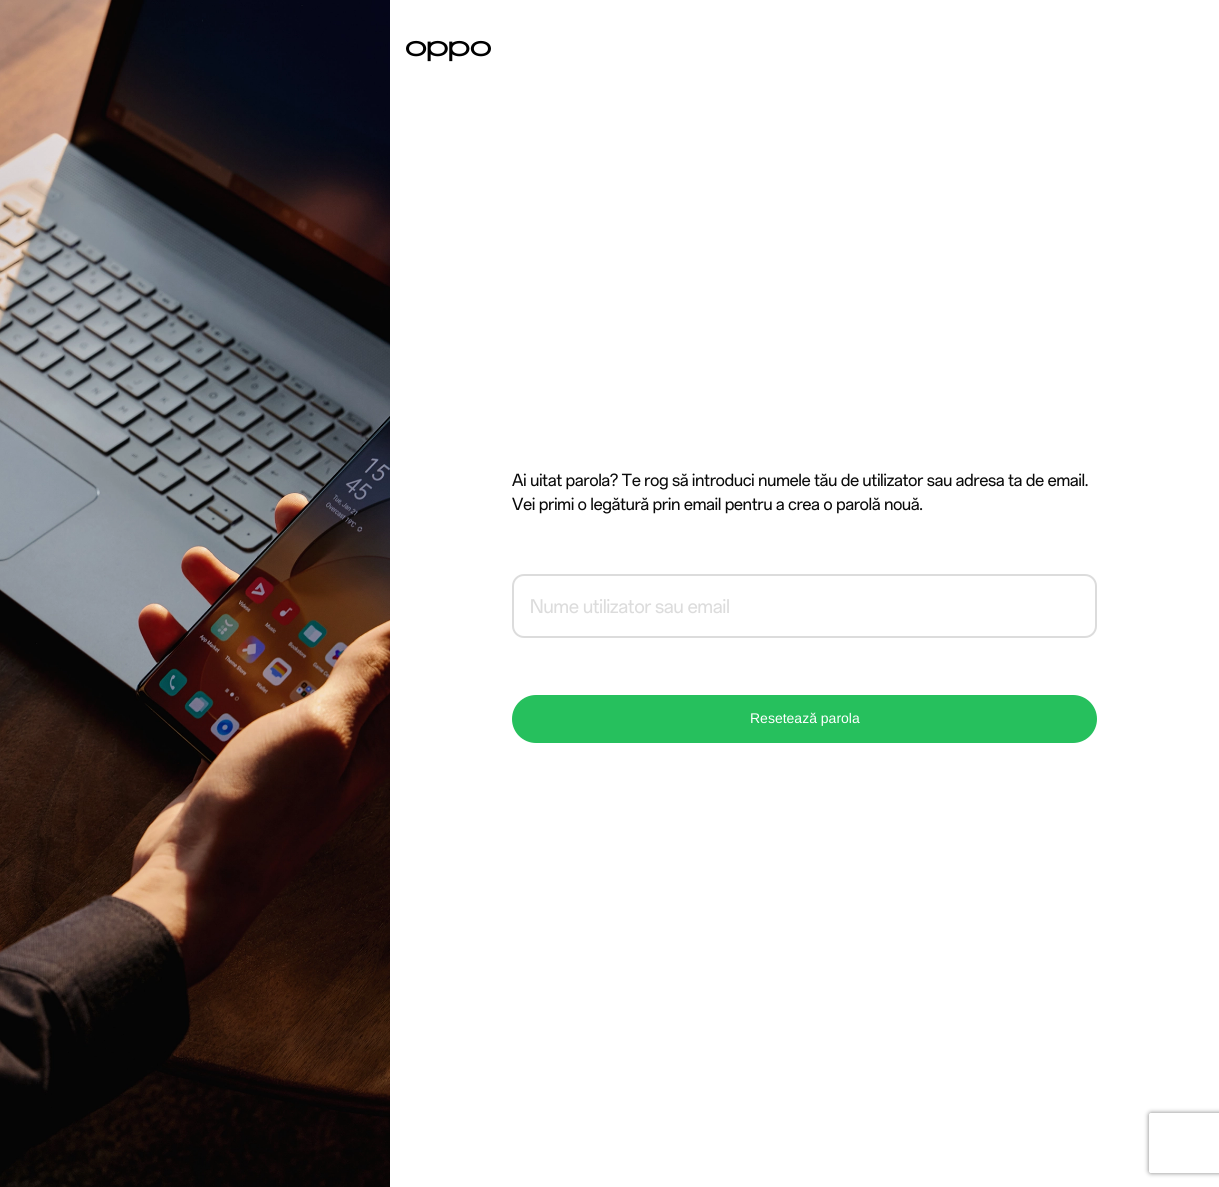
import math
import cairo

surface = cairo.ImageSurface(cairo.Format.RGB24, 1219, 1187)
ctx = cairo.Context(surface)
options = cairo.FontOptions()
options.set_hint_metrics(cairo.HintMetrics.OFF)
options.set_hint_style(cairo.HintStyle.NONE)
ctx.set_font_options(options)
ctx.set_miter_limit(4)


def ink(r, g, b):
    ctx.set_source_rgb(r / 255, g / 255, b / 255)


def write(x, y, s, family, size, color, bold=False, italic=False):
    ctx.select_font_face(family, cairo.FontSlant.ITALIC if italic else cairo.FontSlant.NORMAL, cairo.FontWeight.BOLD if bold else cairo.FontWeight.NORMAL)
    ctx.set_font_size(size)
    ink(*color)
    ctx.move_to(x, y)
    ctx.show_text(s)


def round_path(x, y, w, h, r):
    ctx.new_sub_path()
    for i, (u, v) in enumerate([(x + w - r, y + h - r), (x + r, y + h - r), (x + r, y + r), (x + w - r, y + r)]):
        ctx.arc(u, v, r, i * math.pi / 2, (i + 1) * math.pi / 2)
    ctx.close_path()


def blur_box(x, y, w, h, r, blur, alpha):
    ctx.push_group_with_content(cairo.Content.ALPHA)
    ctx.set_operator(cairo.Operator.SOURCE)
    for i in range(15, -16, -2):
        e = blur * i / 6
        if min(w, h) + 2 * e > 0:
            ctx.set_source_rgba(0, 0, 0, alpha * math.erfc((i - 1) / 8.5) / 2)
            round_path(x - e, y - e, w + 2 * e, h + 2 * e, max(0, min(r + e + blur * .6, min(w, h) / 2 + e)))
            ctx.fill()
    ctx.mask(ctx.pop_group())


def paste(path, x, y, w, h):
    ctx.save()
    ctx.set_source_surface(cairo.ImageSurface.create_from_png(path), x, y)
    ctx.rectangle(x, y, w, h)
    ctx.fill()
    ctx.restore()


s1 = dict(family="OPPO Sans", size=16, color=(10, 10, 10))
s2 = dict(family="OPPO Sans", size=18, color=(220, 220, 220))
s3 = dict(family="Liberation Sans", size=14, color=(255, 255, 255))

ink(255, 255, 255)
ctx.paint()
paste("pic1.png", 0, 0, 390, 1187)
paste("pic2.png", 406, 40, 85, 22)
write(512, 486, "Ai uitat parola? Te rog să introduci numele tău de utilizator sau adresa ta de email.", **s1)
write(512, 510, "Vei primi o legătură prin email pentru a crea o parolă nouă.", **s1)
round_path(513, 575, 583, 62, 11)
ink(220, 220, 220)
ctx.stroke()
write(530, 613, "Nume utilizator sau email", **s2)
ink(38, 192, 93)
round_path(512, 695, 585, 48, 24)
ctx.fill()
write(750, 723, "Resetează parola", **s3)
ctx.save()
ctx.set_fill_rule(cairo.FillRule.EVEN_ODD)
ctx.new_path()
ctx.move_to(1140, 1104)
ctx.line_to(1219, 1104)
ctx.line_to(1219, 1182)
ctx.line_to(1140, 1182)
ctx.close_path()
ctx.move_to(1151, 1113)
ctx.line_to(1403, 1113)
ctx.curve_to(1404, 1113, 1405, 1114, 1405, 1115)
ctx.line_to(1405, 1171)
ctx.curve_to(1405, 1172, 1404, 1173, 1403, 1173)
ctx.line_to(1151, 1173)
ctx.curve_to(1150, 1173, 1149, 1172, 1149, 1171)
ctx.line_to(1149, 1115)
ctx.curve_to(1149, 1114, 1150, 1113, 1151, 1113)
ctx.close_path()
ctx.clip()
ink(128, 128, 128)
blur_box(1149, 1113, 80, 60, 2, 2.5, 1)
ctx.restore()
surface.write_to_png("screenshot.png")
